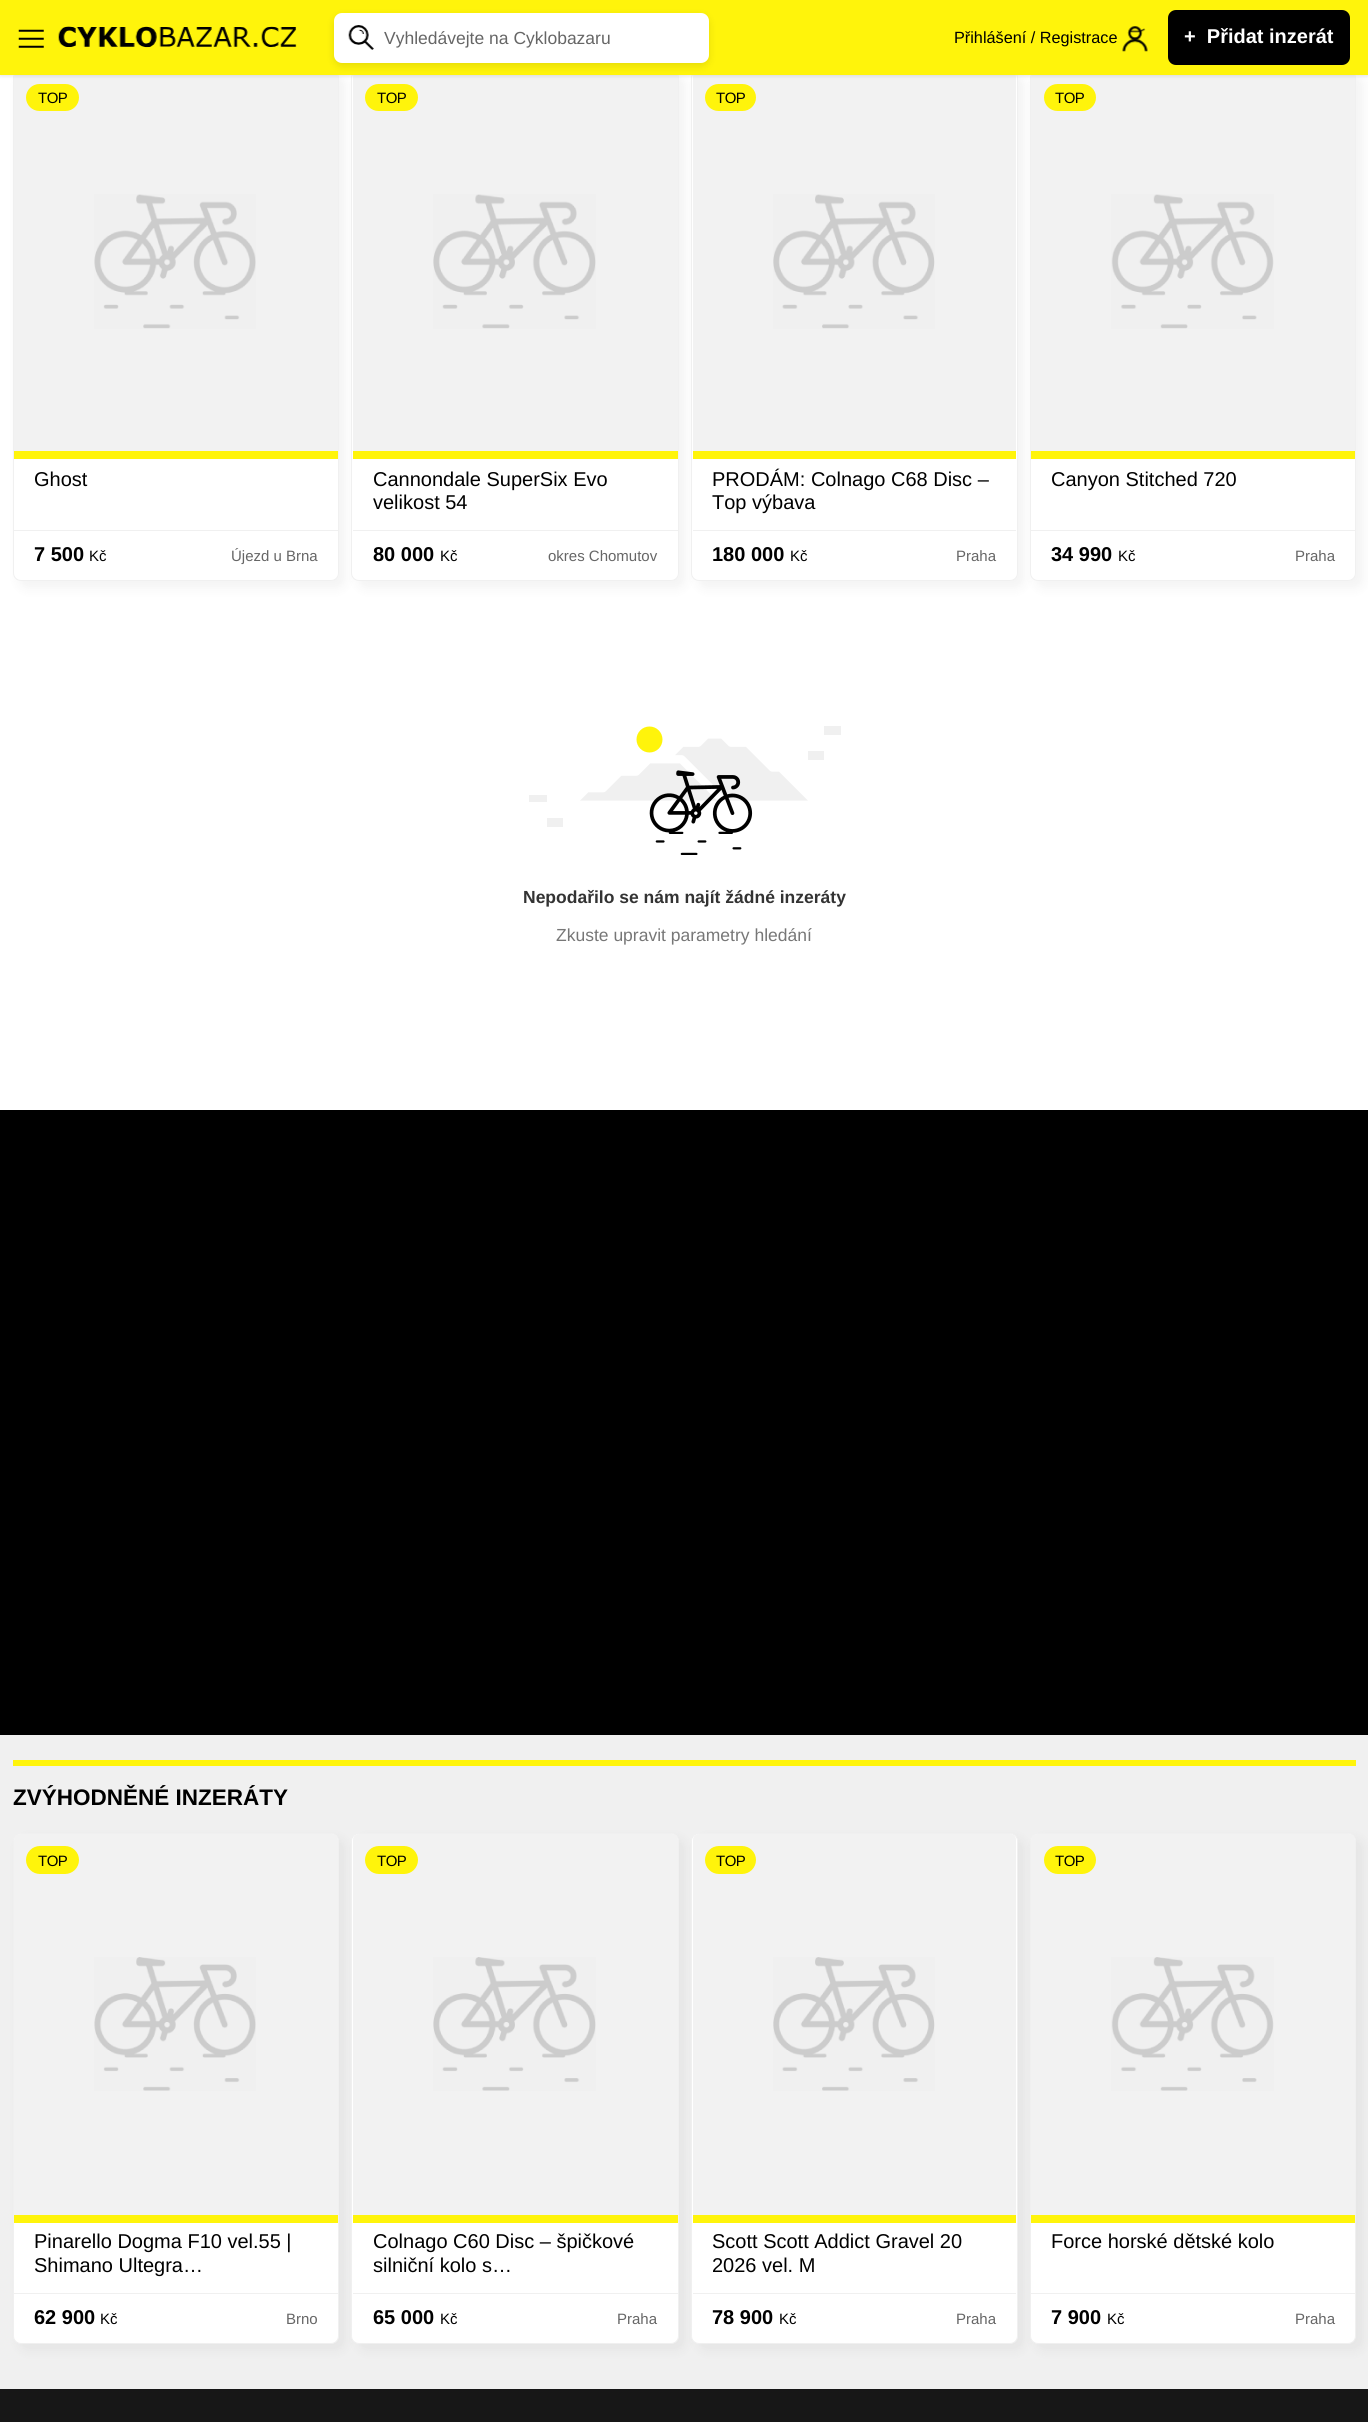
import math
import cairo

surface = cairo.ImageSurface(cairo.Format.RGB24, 1368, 2422)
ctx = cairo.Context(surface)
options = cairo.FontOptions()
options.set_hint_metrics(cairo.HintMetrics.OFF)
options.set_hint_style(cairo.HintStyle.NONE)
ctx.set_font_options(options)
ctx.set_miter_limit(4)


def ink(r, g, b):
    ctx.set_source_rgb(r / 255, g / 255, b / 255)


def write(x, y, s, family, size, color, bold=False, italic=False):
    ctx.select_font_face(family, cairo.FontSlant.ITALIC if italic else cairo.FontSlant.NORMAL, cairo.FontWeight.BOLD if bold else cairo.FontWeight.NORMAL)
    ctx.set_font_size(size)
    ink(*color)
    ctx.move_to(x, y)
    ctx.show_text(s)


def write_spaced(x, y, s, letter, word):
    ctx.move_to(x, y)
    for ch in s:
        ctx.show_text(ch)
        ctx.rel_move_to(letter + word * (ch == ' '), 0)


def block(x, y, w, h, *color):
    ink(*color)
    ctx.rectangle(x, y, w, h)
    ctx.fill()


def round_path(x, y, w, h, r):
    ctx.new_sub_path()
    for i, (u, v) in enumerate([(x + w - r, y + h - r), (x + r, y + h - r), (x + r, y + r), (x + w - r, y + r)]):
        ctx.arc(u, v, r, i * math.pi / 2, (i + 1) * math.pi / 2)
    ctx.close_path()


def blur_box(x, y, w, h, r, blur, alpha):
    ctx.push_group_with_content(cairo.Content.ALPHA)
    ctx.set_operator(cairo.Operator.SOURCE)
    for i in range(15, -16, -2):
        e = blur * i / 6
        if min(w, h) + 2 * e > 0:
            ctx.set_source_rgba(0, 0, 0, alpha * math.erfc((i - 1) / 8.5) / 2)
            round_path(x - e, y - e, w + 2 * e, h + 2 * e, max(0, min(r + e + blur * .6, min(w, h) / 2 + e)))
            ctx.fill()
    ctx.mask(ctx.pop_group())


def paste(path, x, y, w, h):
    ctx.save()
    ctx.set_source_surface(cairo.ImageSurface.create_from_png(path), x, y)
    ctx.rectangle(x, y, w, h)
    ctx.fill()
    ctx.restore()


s1 = dict(family="Liberation Sans", size=17.5, color=(102, 102, 102))
s2 = dict(family="Liberation Sans", size=16.25, color=(0, 0, 0))
s3 = dict(family="Liberation Sans", size=20, color=(255, 255, 255), bold=True)
s4 = dict(family="Liberation Sans", size=20, color=(0, 0, 0))
s5 = dict(family="Liberation Sans", size=20, color=(0, 0, 0), bold=True)
s6 = dict(family="Liberation Sans", size=15, color=(0, 0, 0))
s7 = dict(family="Liberation Sans", size=15, color=(102, 102, 102))
s8 = dict(family="Liberation Sans", size=17.5, color=(51, 51, 51), bold=True)
s9 = dict(family="Liberation Sans", size=17.5, color=(119, 119, 119))
s10 = dict(family="Liberation Sans", size=22.5, color=(0, 0, 0), bold=True)

ink(255, 255, 255)
ctx.paint()
ink(0, 0, 0)
blur_box(19, 76, 326, 512, 8, 6, 0.05)
ink(255, 255, 255)
round_path(13.5, 70.5, 325, 510, 7.5)
ctx.fill_preserve()
ink(240, 240, 240)
ctx.set_line_width(1)
ctx.stroke()
ink(242, 242, 242)
ctx.new_path()
ctx.move_to(20, 71)
ctx.line_to(332, 71)
ctx.curve_to(335.5, 71, 338, 73.5, 338, 77)
ctx.line_to(338, 451)
ctx.line_to(14, 451)
ctx.line_to(14, 77)
ctx.curve_to(14, 73.5, 16.5, 71, 20, 71)
ctx.close_path()
ctx.fill()
ink(0, 0, 0)
blur_box(358, 76, 327, 512, 8, 6, 0.05)
ink(255, 255, 255)
round_path(351.5, 70.5, 327, 510, 7.5)
ctx.fill_preserve()
ink(240, 240, 240)
ctx.stroke()
ink(242, 242, 242)
ctx.new_path()
ctx.move_to(359, 71)
ctx.line_to(672, 71)
ctx.curve_to(675.5, 71, 678, 73.5, 678, 77)
ctx.line_to(678, 451)
ctx.line_to(353, 451)
ctx.line_to(353, 77)
ctx.curve_to(353, 73.5, 355.5, 71, 359, 71)
ctx.close_path()
ctx.fill()
ink(0, 0, 0)
blur_box(698, 76, 326, 512, 8, 6, 0.05)
ink(255, 255, 255)
round_path(691.5, 70.5, 326, 510, 7.5)
ctx.fill_preserve()
ink(240, 240, 240)
ctx.stroke()
ink(242, 242, 242)
ctx.new_path()
ctx.move_to(699, 71)
ctx.line_to(1010, 71)
ctx.curve_to(1013.5, 71, 1016, 73.5, 1016, 77)
ctx.line_to(1016, 451)
ctx.line_to(693, 451)
ctx.line_to(693, 77)
ctx.curve_to(693, 73.5, 695.5, 71, 699, 71)
ctx.close_path()
ctx.fill()
ink(0, 0, 0)
blur_box(1036, 76, 327, 512, 8, 6, 0.05)
ink(255, 255, 255)
round_path(1030.5, 70.5, 325, 510, 7.5)
ctx.fill_preserve()
ink(240, 240, 240)
ctx.stroke()
ink(242, 242, 242)
ctx.new_path()
ctx.move_to(1037, 71)
ctx.line_to(1349, 71)
ctx.curve_to(1352.5, 71, 1355, 73.5, 1355, 77)
ctx.line_to(1355, 451)
ctx.line_to(1031, 451)
ctx.line_to(1031, 77)
ctx.curve_to(1031, 73.5, 1033.5, 71, 1037, 71)
ctx.close_path()
ctx.fill()
ink(0, 0, 0)
blur_box(0, 0, 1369, 75, 0, 2.5, 0.15)
block(0, 0, 1368, 75, 255, 244, 11)
paste("pic1.png", 18, 29, 26, 19)
paste("pic2.png", 58, 26, 239, 22)
ink(0, 0, 0)
blur_box(334, 16, 375, 50, 8, 4, 0.1)
ink(255, 255, 255)
round_path(334, 13, 375, 50, 8)
ctx.fill()
paste("pic3.png", 348, 25, 26, 25)
write(384, 44, "Vyhledávejte na Cyklobazaru", **s1)
write(954, 43, "Přihlášení / Registrace", **s2)
paste("pic4.png", 1122, 26, 26, 26)
round_path(1168, 10, 182, 55, 8)
ctx.fill()
write(1184, 43, "+  Přidat inzerát", **s3)
block(14, 451, 324, 8, 255, 244, 11)
paste("pic5.png", 94, 194, 162, 135)
round_path(26, 84, 53, 27, 13.5)
ctx.fill()
ctx.select_font_face("Liberation Sans")
ctx.set_font_size(15)
ink(0, 0, 0)
write_spaced(38, 103, "TOP", -0.5, 0)
write(34, 486, "Ghost", **s4)
block(14, 530, 324, 1, 240, 240, 240)
write(34, 561, "7 500", **s5)
write(89, 561, "Kč", **s6)
write(231, 561, "Újezd u Brna", **s7)
block(353, 451, 325, 8, 255, 244, 11)
paste("pic6.png", 433, 194, 163, 135)
round_path(365, 84, 53, 27, 13.5)
ctx.fill()
ink(0, 0, 0)
write_spaced(377, 103, "TOP", -0.5, 0)
write(373, 486, "Cannondale SuperSix Evo", **s4)
write(373, 509, "velikost 54", **s4)
block(353, 530, 325, 1, 240, 240, 240)
write(373, 561, "80 000", **s5)
write(440, 561, "Kč", **s6)
write(548, 561, "okres Chomutov", **s7)
block(693, 451, 323, 8, 255, 244, 11)
paste("pic7.png", 773, 194, 162, 135)
round_path(705, 84, 51, 27, 13.5)
ctx.fill()
ink(0, 0, 0)
write_spaced(716, 103, "TOP", -0.5, 0)
write(712, 486, "PRODÁM: Colnago C68 Disc –", **s4)
write(712, 509, "Top výbava", **s4)
block(693, 530, 323, 1, 240, 240, 240)
write(712, 561, "180 000", **s5)
write(790, 561, "Kč", **s6)
write(956, 561, "Praha", **s7)
block(1031, 451, 324, 8, 255, 244, 11)
paste("pic8.png", 1111, 194, 163, 135)
round_path(1044, 84, 52, 27, 13.5)
ctx.fill()
ink(0, 0, 0)
write_spaced(1055, 103, "TOP", -0.5, 0)
write(1051, 486, "Canyon Stitched 720", **s4)
block(1031, 530, 324, 1, 240, 240, 240)
write(1051, 561, "34 990", **s5)
write(1118, 561, "Kč", **s6)
write(1295, 561, "Praha", **s7)
paste("pic9.png", 529, 726, 312, 129)
write(523, 903, "Nepodařilo se nám najít žádné inzeráty", **s8)
write(556, 941, "Zkuste upravit parametry hledání", **s9)
block(0, 1110, 1368, 625, 0, 0, 0)
block(0, 1735, 1368, 654, 240, 240, 240)
block(13, 1760, 1343, 6, 255, 244, 11)
write(13, 1805, "ZVÝHODNĚNÉ INZERÁTY", **s10)
ink(0, 0, 0)
blur_box(19, 1839, 326, 511, 8, 6, 0.05)
ink(255, 255, 255)
round_path(13.5, 1833.5, 325, 510, 7.5)
ctx.fill_preserve()
ink(240, 240, 240)
ctx.stroke()
block(14, 2215, 324, 8, 255, 244, 11)
ink(242, 242, 242)
ctx.new_path()
ctx.move_to(20, 1834)
ctx.line_to(332, 1834)
ctx.curve_to(335.5, 1834, 338, 1836.5, 338, 1840)
ctx.line_to(338, 2215)
ctx.line_to(14, 2215)
ctx.line_to(14, 1840)
ctx.curve_to(14, 1836.5, 16.5, 1834, 20, 1834)
ctx.close_path()
ctx.fill()
paste("pic10.png", 94, 1957, 162, 134)
ink(255, 244, 11)
round_path(26, 1846, 53, 28, 14)
ctx.fill()
ctx.select_font_face("Liberation Sans")
ctx.set_font_size(15)
ink(0, 0, 0)
write_spaced(38, 1866, "TOP", -0.5, 0)
write(34, 2248, "Pinarello Dogma F10 vel.55 |", **s4)
write(34, 2272, "Shimano Ultegra…", **s4)
block(14, 2293, 324, 1, 240, 240, 240)
write(34, 2324, "62 900", **s5)
write(100, 2324, "Kč", **s6)
write(286, 2324, "Brno", **s7)
ink(0, 0, 0)
blur_box(358, 1839, 327, 511, 8, 6, 0.05)
ink(255, 255, 255)
round_path(351.5, 1833.5, 327, 510, 7.5)
ctx.fill_preserve()
ink(240, 240, 240)
ctx.stroke()
block(353, 2215, 325, 8, 255, 244, 11)
ink(242, 242, 242)
ctx.new_path()
ctx.move_to(359, 1834)
ctx.line_to(672, 1834)
ctx.curve_to(675.5, 1834, 678, 1836.5, 678, 1840)
ctx.line_to(678, 2215)
ctx.line_to(353, 2215)
ctx.line_to(353, 1840)
ctx.curve_to(353, 1836.5, 355.5, 1834, 359, 1834)
ctx.close_path()
ctx.fill()
paste("pic11.png", 433, 1957, 163, 134)
ink(255, 244, 11)
round_path(365, 1846, 53, 28, 14)
ctx.fill()
ink(0, 0, 0)
write_spaced(377, 1866, "TOP", -0.5, 0)
write(373, 2248, "Colnago C60 Disc – špičkové", **s4)
write(373, 2272, "silniční kolo s…", **s4)
block(353, 2293, 325, 1, 240, 240, 240)
write(373, 2324, "65 000", **s5)
write(440, 2324, "Kč", **s6)
write(617, 2324, "Praha", **s7)
ink(0, 0, 0)
blur_box(698, 1839, 326, 511, 8, 6, 0.05)
ink(255, 255, 255)
round_path(691.5, 1833.5, 326, 510, 7.5)
ctx.fill_preserve()
ink(240, 240, 240)
ctx.stroke()
block(693, 2215, 323, 8, 255, 244, 11)
ink(242, 242, 242)
ctx.new_path()
ctx.move_to(699, 1834)
ctx.line_to(1010, 1834)
ctx.curve_to(1013.5, 1834, 1016, 1836.5, 1016, 1840)
ctx.line_to(1016, 2215)
ctx.line_to(693, 2215)
ctx.line_to(693, 1840)
ctx.curve_to(693, 1836.5, 695.5, 1834, 699, 1834)
ctx.close_path()
ctx.fill()
paste("pic12.png", 773, 1957, 162, 134)
ink(255, 244, 11)
round_path(705, 1846, 51, 28, 14)
ctx.fill()
ink(0, 0, 0)
write_spaced(716, 1866, "TOP", -0.5, 0)
write(712, 2248, "Scott Scott Addict Gravel 20", **s4)
write(712, 2272, "2026 vel. M", **s4)
block(693, 2293, 323, 1, 240, 240, 240)
write(712, 2324, "78 900", **s5)
write(779, 2324, "Kč", **s6)
write(956, 2324, "Praha", **s7)
ink(0, 0, 0)
blur_box(1036, 1839, 327, 511, 8, 6, 0.05)
ink(255, 255, 255)
round_path(1030.5, 1833.5, 325, 510, 7.5)
ctx.fill_preserve()
ink(240, 240, 240)
ctx.stroke()
block(1031, 2215, 324, 8, 255, 244, 11)
ink(242, 242, 242)
ctx.new_path()
ctx.move_to(1037, 1834)
ctx.line_to(1349, 1834)
ctx.curve_to(1352.5, 1834, 1355, 1836.5, 1355, 1840)
ctx.line_to(1355, 2215)
ctx.line_to(1031, 2215)
ctx.line_to(1031, 1840)
ctx.curve_to(1031, 1836.5, 1033.5, 1834, 1037, 1834)
ctx.close_path()
ctx.fill()
paste("pic13.png", 1111, 1957, 163, 134)
ink(255, 244, 11)
round_path(1044, 1846, 52, 28, 14)
ctx.fill()
ink(0, 0, 0)
write_spaced(1055, 1866, "TOP", -0.5, 0)
write(1051, 2248, "Force horské dětské kolo", **s4)
block(1031, 2293, 324, 1, 240, 240, 240)
write(1051, 2324, "7 900", **s5)
write(1107, 2324, "Kč", **s6)
write(1295, 2324, "Praha", **s7)
block(0, 2389, 1368, 33, 23, 23, 23)
surface.write_to_png("screenshot.png")
